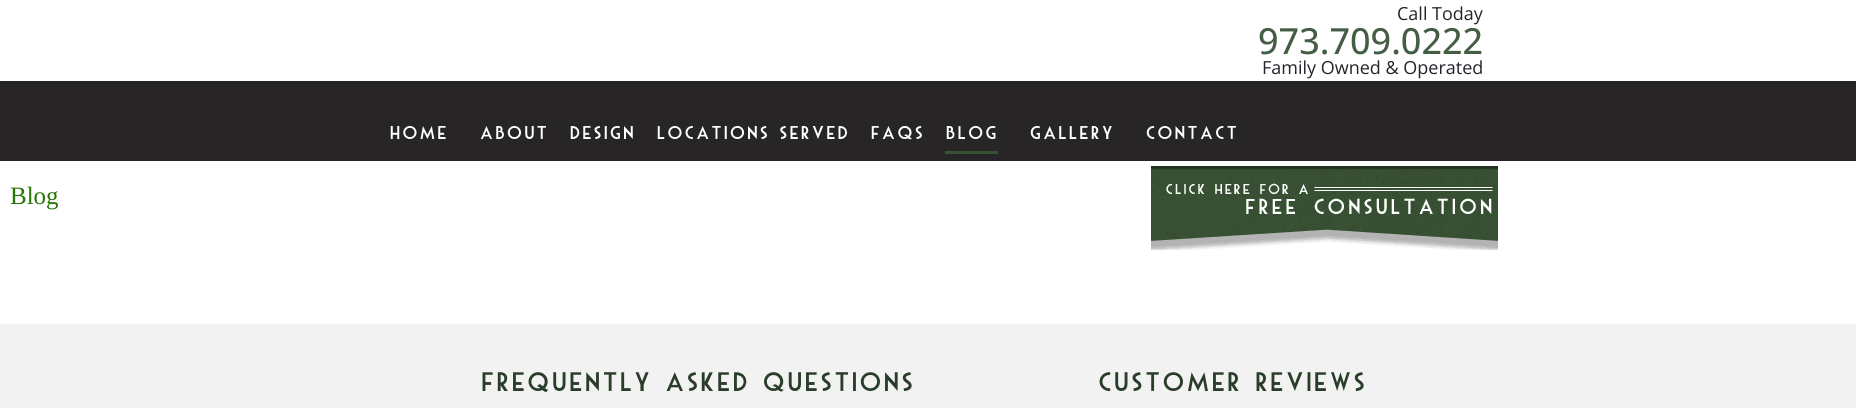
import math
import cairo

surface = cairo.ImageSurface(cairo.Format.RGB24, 1856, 408)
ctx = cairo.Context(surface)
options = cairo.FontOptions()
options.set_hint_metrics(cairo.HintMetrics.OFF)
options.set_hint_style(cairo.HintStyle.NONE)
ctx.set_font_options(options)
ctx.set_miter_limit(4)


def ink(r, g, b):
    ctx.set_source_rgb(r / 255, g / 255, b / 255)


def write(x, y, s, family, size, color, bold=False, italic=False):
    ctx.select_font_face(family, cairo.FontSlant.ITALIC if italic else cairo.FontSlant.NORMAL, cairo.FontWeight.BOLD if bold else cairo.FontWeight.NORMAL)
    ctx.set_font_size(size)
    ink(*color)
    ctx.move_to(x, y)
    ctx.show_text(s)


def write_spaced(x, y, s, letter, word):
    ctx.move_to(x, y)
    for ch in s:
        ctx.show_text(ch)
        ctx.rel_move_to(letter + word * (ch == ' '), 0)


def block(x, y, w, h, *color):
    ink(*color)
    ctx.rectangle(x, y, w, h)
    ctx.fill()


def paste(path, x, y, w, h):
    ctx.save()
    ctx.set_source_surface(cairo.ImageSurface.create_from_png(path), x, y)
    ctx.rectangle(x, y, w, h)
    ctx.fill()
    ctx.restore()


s1 = dict(family="Open Sans", size=18, color=(33, 37, 41))
s2 = dict(family="Open Sans Medium", size=36, color=(68, 94, 69))
s3 = dict(family="Liberation Serif", size=25, color=(41, 118, 7))
s4 = dict(family="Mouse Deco", size=26, color=(41, 61, 42))

ink(255, 255, 255)
ctx.paint()
write(1397, 20, "Call Today", **s1)
write(1258, 54, "973.709.0222", **s2)
write(1262, 74, "Family Owned & Operated", **s1)
block(0, 81, 1856, 80, 39, 37, 37)
ctx.select_font_face("Mouse Deco")
ink(255, 255, 255)
write_spaced(389, 139, "HOME", 0.5, 0)
write_spaced(479, 139, "ABOUT", 0.5, 0)
write_spaced(569, 139, "DESIGN", 0.5, 0)
write_spaced(656, 139, "LOCATIONS SERVED", 0.5, 0)
write_spaced(870, 139, "FAQS", 0.5, 0)
write_spaced(945, 139, "BLOG", 0.5, 0)
block(945, 151, 53, 3, 56, 80, 52)
ink(255, 255, 255)
write_spaced(1029, 139, "GALLERY", 0.5, 0)
write_spaced(1145, 139, "CONTACT", 0.5, 0)
paste("pic1.png", 1151, 166, 347, 84)
write(10, 204, "Blog", **s3)
block(0, 324, 1856, 84, 243, 242, 242)
write(480, 391, "Frequently Asked Questions", **s4)
write(1097, 391, "Customer Reviews", **s4)
surface.write_to_png("screenshot.png")
